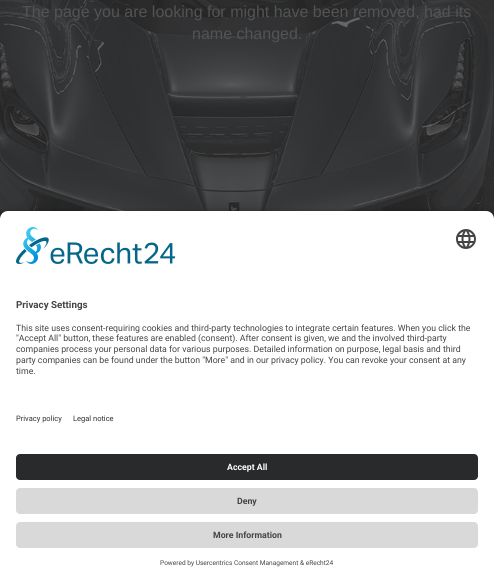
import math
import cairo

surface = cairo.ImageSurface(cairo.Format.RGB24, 494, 584)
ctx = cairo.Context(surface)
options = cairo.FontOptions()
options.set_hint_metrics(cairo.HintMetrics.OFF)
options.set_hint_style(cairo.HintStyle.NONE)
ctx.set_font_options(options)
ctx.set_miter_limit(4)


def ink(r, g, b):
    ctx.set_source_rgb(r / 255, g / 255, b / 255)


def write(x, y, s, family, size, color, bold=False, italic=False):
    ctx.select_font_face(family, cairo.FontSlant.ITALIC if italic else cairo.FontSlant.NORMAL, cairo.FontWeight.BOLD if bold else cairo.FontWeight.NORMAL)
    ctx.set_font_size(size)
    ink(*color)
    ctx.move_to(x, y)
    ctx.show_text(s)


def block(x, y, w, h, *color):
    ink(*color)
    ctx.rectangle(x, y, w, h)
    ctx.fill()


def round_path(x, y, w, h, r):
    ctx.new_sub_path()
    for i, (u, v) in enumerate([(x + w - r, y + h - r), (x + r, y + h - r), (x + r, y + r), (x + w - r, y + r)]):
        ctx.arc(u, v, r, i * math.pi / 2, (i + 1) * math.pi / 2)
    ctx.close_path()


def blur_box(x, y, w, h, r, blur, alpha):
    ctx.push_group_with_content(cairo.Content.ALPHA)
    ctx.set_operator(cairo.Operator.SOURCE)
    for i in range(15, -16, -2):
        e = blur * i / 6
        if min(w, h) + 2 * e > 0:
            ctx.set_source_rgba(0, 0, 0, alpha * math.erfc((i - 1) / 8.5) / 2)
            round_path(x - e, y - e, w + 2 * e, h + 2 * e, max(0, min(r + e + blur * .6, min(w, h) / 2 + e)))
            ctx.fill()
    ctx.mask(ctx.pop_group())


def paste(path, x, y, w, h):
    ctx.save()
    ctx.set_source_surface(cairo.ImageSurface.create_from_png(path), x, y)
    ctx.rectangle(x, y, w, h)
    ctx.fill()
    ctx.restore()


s1 = dict(family="Liberation Sans", size=16, color=(83, 83, 83))
s2 = dict(family="Roboto", size=9.75, color=(68, 68, 68), bold=True)
s3 = dict(family="Roboto", size=8.75, color=(68, 68, 68))
s4 = dict(family="Roboto", size=7.5, color=(48, 48, 48))
s5 = dict(family="Roboto", size=8.75, color=(255, 255, 255), bold=True)
s6 = dict(family="Roboto", size=8.75, color=(68, 68, 68), bold=True)
s7 = dict(family="Roboto", size=6.55, color=(68, 68, 68))

ink(255, 255, 255)
ctx.paint()
paste("pic1.png", 0, 0, 494, 219)
write(22, 17, "The page you are looking for might have been removed, had its", **s1)
write(192, 39, "name changed.", **s1)
ink(0, 0, 0)
blur_box(0, 214, 494, 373, 8, 3.5, 0.8)
ink(255, 255, 255)
ctx.new_path()
ctx.move_to(8, 211)
ctx.line_to(486, 211)
ctx.curve_to(490.5, 211, 494, 214.5, 494, 219)
ctx.line_to(494, 397)
ctx.line_to(0, 397)
ctx.line_to(0, 219)
ctx.curve_to(0, 214.5, 3.5, 211, 8, 211)
ctx.close_path()
ctx.fill()
paste("pic2.png", 16, 227, 160, 37)
paste("pic3.png", 456, 229, 20, 20)
write(16, 308, "Privacy Settings", **s2)
write(16, 331, "This site uses consent-requiring cookies and third-party technologies to integrate certain features. When you click the", **s3)
write(16, 341, "\"Accept All\" button, these features are enabled (consent). After consent is given, we and the involved third-party", **s3)
write(16, 352, "companies process your personal data for various purposes. Detailed information on purpose, legal basis and third", **s3)
write(16, 363, "party companies can be found under the button \"More\" and in our privacy policy. You can revoke your consent at any", **s3)
write(16, 374, "time.", **s3)
block(0, 397, 494, 187, 255, 255, 255)
write(16, 421, "Privacy policy", **s4)
write(73, 421, "Legal notice", **s4)
ink(41, 42, 43)
round_path(16, 454, 462, 26, 4)
ctx.fill()
write(227, 470, "Accept All", **s5)
ink(217, 217, 217)
round_path(16, 488, 462, 26, 4)
ctx.fill()
write(237, 504, "Deny", **s6)
ink(217, 217, 217)
round_path(16, 522, 462, 26, 4)
ctx.fill()
write(213, 538, "More Information", **s6)
write(160, 565, "Powered by Usercentrics Consent Management & eRecht24", **s7)
surface.write_to_png("screenshot.png")
